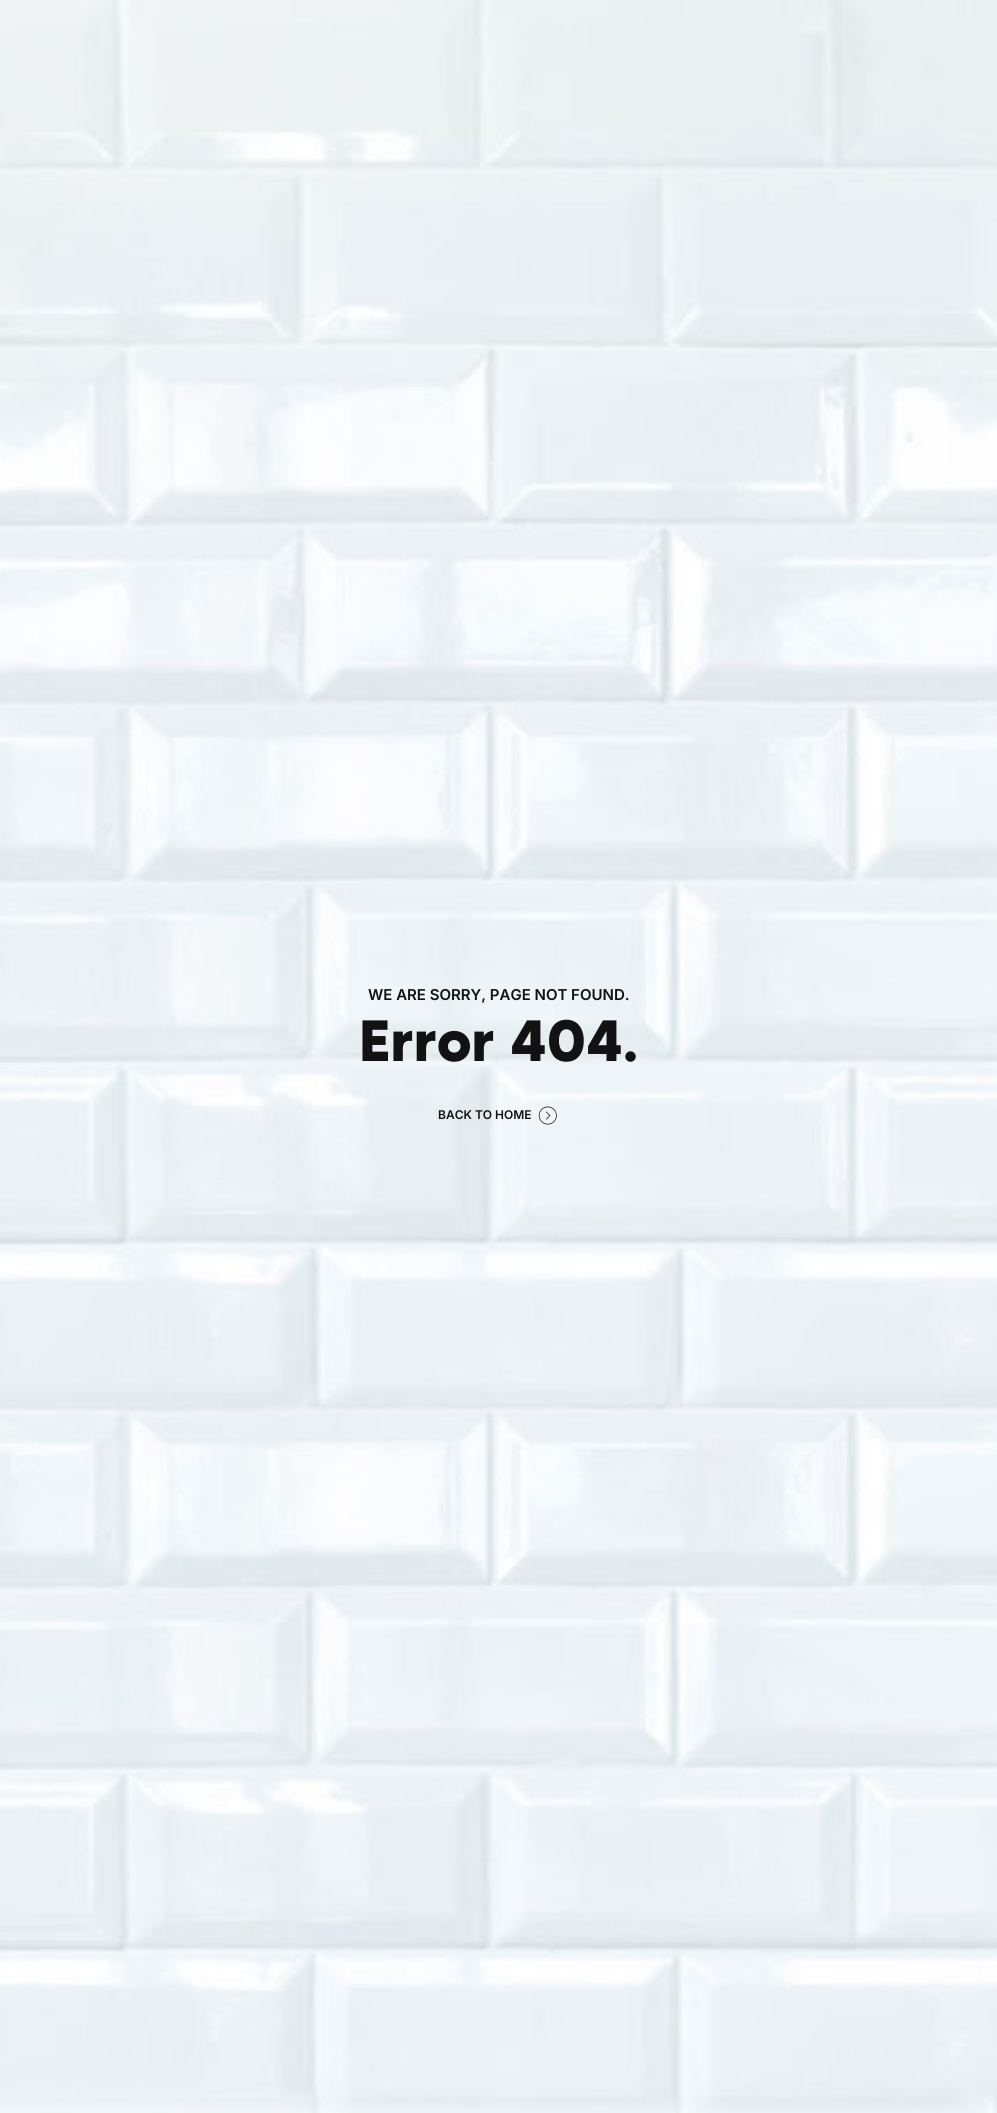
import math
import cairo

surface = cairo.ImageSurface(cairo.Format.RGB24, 997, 2113)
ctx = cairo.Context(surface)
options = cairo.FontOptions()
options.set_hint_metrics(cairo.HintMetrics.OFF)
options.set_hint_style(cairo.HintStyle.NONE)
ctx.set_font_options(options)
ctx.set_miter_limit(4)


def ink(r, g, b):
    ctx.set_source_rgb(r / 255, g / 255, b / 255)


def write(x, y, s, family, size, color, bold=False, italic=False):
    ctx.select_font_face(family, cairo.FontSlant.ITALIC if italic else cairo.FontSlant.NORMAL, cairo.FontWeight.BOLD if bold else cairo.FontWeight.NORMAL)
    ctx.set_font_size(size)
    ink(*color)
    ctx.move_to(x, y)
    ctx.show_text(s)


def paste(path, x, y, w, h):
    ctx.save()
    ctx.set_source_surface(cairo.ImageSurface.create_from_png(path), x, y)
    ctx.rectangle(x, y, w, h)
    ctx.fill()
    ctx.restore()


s1 = dict(family="Inter SemiBold", size=15, color=(18, 18, 18))
s2 = dict(family="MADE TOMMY", size=58, color=(18, 18, 18), bold=True)
s3 = dict(family="Inter SemiBold", size=12, color=(18, 18, 18))

ink(255, 255, 255)
ctx.paint()
paste("pic1.png", 0, 0, 997, 2113)
write(368, 1000, "WE ARE SORRY, PAGE NOT FOUND.", **s1)
write(359, 1061, "Error 404.", **s2)
write(438, 1119, "BACK TO HOME", **s3)
paste("pic2.png", 538, 1106, 19, 19)
surface.write_to_png("screenshot.png")
